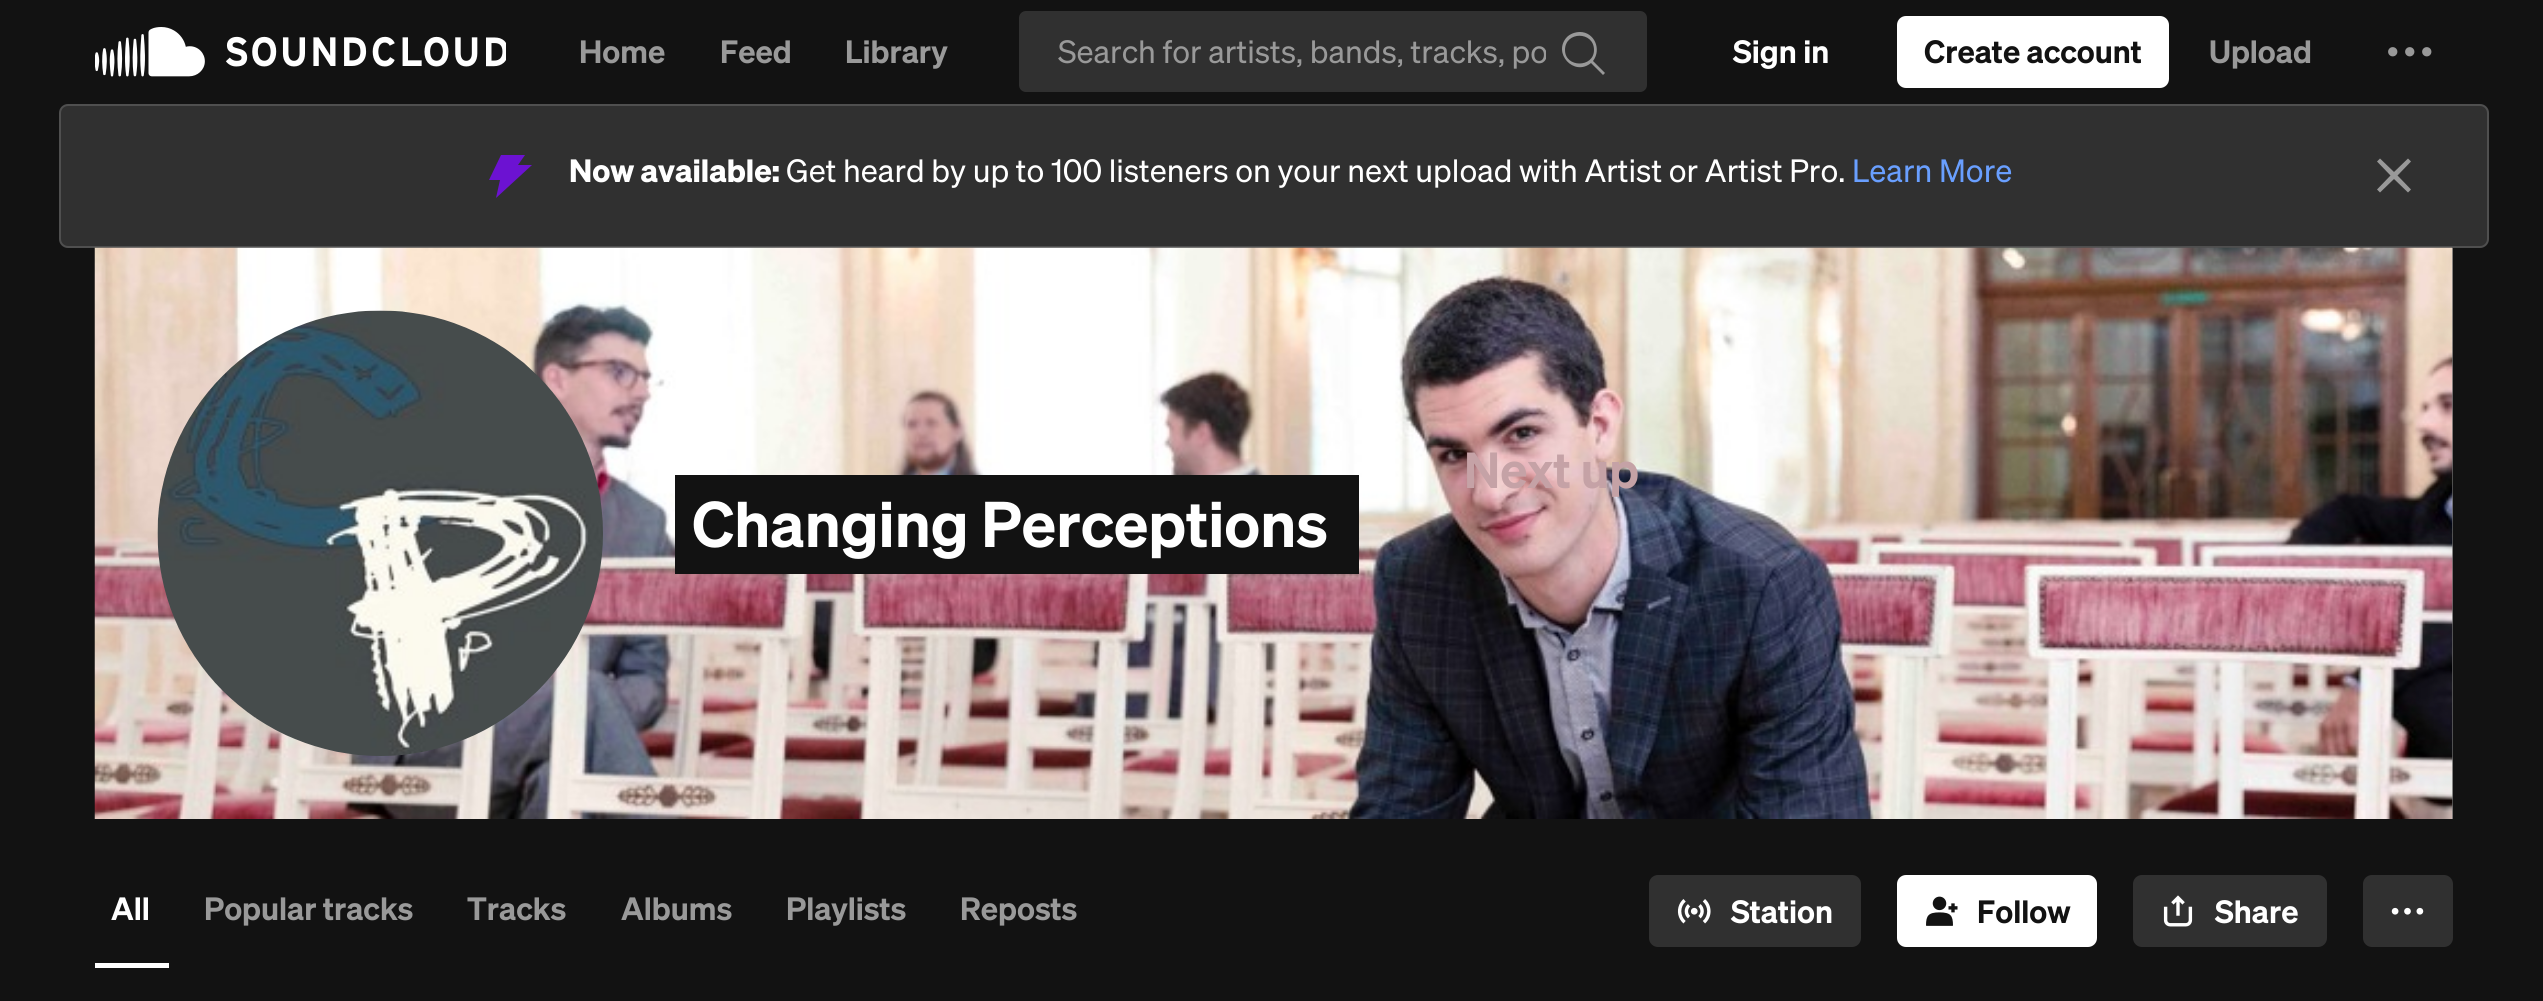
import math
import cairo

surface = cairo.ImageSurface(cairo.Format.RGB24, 2543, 1001)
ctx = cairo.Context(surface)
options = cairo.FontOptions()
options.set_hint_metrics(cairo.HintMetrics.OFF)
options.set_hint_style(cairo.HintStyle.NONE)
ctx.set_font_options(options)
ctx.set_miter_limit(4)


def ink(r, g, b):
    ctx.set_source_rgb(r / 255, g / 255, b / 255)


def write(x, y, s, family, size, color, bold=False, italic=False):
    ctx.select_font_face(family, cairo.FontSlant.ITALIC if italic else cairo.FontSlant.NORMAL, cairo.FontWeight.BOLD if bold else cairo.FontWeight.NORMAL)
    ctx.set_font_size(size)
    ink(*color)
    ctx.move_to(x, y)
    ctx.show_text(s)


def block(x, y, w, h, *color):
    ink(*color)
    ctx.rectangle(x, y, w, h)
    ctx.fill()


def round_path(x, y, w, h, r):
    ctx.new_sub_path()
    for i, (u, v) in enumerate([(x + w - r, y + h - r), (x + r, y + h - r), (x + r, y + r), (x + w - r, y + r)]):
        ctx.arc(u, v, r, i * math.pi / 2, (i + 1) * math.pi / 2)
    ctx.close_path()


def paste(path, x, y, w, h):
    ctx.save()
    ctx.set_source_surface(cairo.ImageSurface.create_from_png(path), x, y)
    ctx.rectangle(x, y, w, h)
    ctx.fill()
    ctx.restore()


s1 = dict(family="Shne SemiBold", size=31.5, color=(153, 153, 153))
s2 = dict(family="Shne", size=31.5, color=(153, 153, 153))
s3 = dict(family="Shne SemiBold", size=31.5, color=(255, 255, 255))
s4 = dict(family="Shne SemiBold", size=31.5, color=(18, 18, 18))
s5 = dict(family="Shne", size=31.5, color=(255, 255, 255), bold=True)
s6 = dict(family="Shne", size=31.5, color=(255, 255, 255))
s7 = dict(family="Shne", size=31.5, color=(105, 159, 255))
s8 = dict(family="Shne SemiBold", size=63, color=(255, 255, 255))
s9 = dict(family="Shne SemiBold", size=49.5, color=(197, 162, 166))

ink(18, 18, 18)
ctx.paint()
paste("pic1.png", 95, 27, 411, 50)
write(579, 63, "Home", **s1)
write(720, 63, "Feed", **s1)
write(845, 63, "Library", **s1)
ink(48, 48, 48)
round_path(1019, 11, 628, 81, 7)
ctx.fill()
ctx.save()
ctx.rectangle(1058, 27, 488, 50)
ctx.clip()
write(1058, 63, "Search for artists, bands, tracks, po", **s2)
ctx.restore()
ink(153, 153, 153)
ctx.new_path()
ctx.move_to(1580, 32)
ctx.curve_to(1575, 32, 1570, 34, 1567, 37)
ctx.curve_to(1552, 53, 1574, 77, 1591, 63)
ctx.line_to(1603, 75)
ctx.line_to(1605, 73)
ctx.line_to(1593, 61)
ctx.curve_to(1602, 49, 1594, 32, 1580, 32)
ctx.close_path()
ctx.move_to(1565, 50)
ctx.curve_to(1565, 31, 1594, 31, 1594, 50)
ctx.curve_to(1594, 68, 1565, 68, 1565, 50)
ctx.close_path()
ctx.fill()
write(1733, 63, "Sign in", **s3)
round_path(1897, 16, 272, 72, 9)
ctx.fill()
write(1924, 63, "Create account", **s4)
write(2209, 63, "Upload", **s1)
paste("pic2.png", 2388, 47, 44, 10)
ink(48, 48, 48)
round_path(59, 104, 2430, 144, 9)
ctx.fill()
round_path(60, 105, 2428, 142, 8)
ctx.set_source_rgba(1, 1, 1, 0.15)
ctx.stroke()
ink(108, 18, 210)
ctx.new_path()
ctx.move_to(501, 155)
ctx.line_to(489, 180)
ctx.line_to(500, 180)
ctx.line_to(496, 198)
ctx.line_to(532, 165)
ctx.line_to(518, 165)
ctx.line_to(525, 155)
ctx.close_path()
ctx.fill()
write(569, 182, "Now available:", **s5)
write(786, 182, "Get heard by up to 100 listeners on your next upload with Artist or Artist Pro.", **s6)
write(1852, 182, "Learn More", **s7)
ink(153, 153, 153)
ctx.new_path()
ctx.move_to(2390.5, 175.5)
ctx.line_to(2377, 189.5)
ctx.line_to(2380, 192.5)
ctx.line_to(2394, 179)
ctx.line_to(2408, 192.5)
ctx.line_to(2411, 189.5)
ctx.line_to(2397.5, 175.5)
ctx.line_to(2411, 161.5)
ctx.line_to(2408, 158.5)
ctx.line_to(2394, 172)
ctx.line_to(2380, 158.5)
ctx.line_to(2377, 161.5)
ctx.close_path()
ctx.fill()
block(2452, 248, 1, 571, 102, 102, 102)
paste("pic3.png", 94, 247, 2359, 572)
paste("pic4.png", 157, 310, 446, 446)
block(675, 475, 684, 99, 18, 18, 18)
write(692, 547, "Changing Perceptions", **s8)
block(95, 963, 74, 5, 255, 255, 255)
write(111, 920, "All", **s3)
write(204, 920, "Popular tracks", **s1)
write(467, 920, "Tracks", **s1)
write(621, 920, "Albums", **s1)
write(786, 920, "Playlists", **s1)
write(960, 920, "Reposts", **s1)
ink(48, 48, 48)
round_path(1649, 875, 212, 72, 9)
ctx.fill()
paste("pic5.png", 1677, 899, 34, 25)
write(1731, 923, "Station", **s3)
round_path(1897, 875, 200, 72, 9)
ctx.fill()
paste("pic6.png", 1926, 896, 32, 30)
write(1977, 923, "Follow", **s4)
ink(48, 48, 48)
round_path(2133, 875, 194, 72, 9)
ctx.fill()
paste("pic7.png", 2163, 895, 30, 32)
write(2215, 923, "Share", **s3)
ink(48, 48, 48)
round_path(2363, 875, 90, 72, 9)
ctx.fill()
paste("pic8.png", 2391, 907, 33, 8)
write(1464, 488, "Next up", **s9)
surface.write_to_png("screenshot.png")
